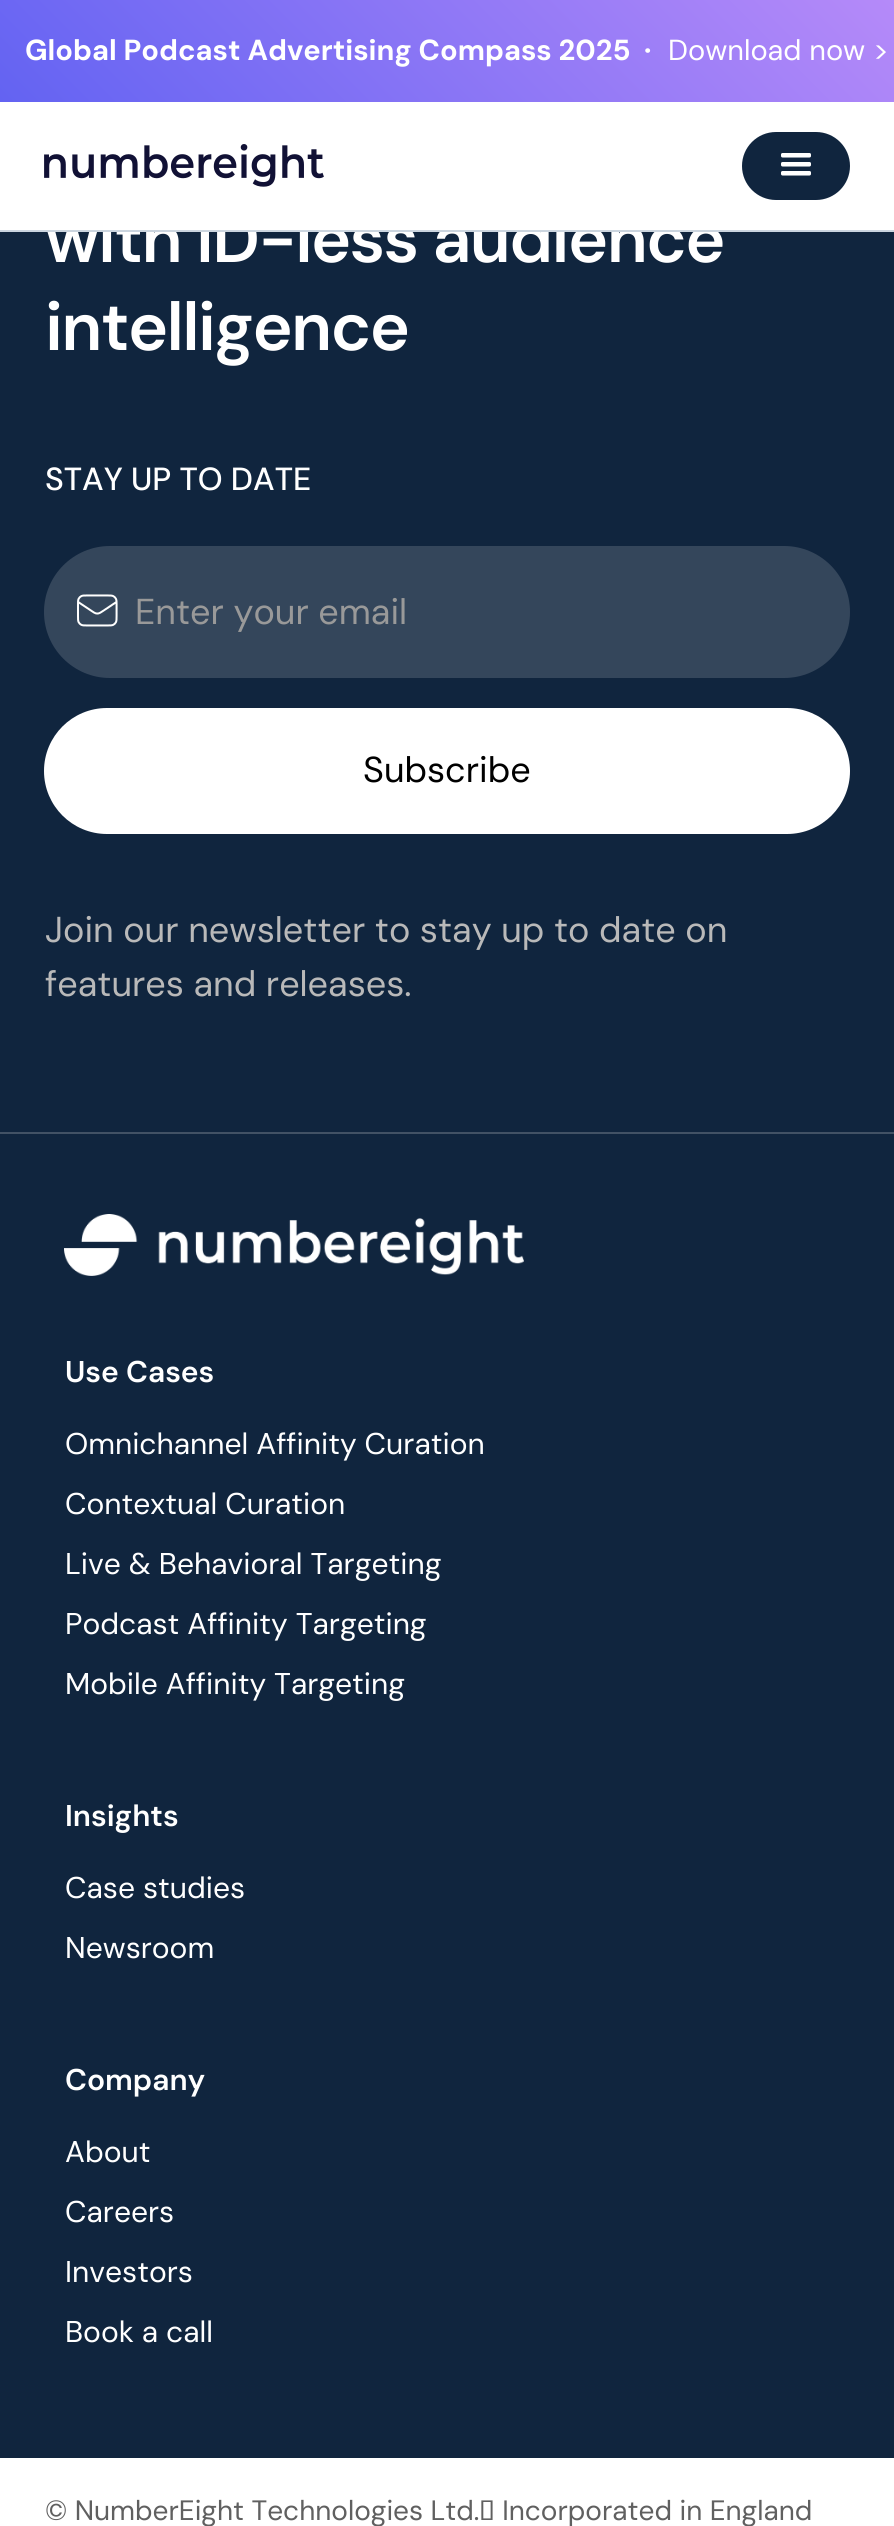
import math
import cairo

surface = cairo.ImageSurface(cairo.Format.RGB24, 894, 2526)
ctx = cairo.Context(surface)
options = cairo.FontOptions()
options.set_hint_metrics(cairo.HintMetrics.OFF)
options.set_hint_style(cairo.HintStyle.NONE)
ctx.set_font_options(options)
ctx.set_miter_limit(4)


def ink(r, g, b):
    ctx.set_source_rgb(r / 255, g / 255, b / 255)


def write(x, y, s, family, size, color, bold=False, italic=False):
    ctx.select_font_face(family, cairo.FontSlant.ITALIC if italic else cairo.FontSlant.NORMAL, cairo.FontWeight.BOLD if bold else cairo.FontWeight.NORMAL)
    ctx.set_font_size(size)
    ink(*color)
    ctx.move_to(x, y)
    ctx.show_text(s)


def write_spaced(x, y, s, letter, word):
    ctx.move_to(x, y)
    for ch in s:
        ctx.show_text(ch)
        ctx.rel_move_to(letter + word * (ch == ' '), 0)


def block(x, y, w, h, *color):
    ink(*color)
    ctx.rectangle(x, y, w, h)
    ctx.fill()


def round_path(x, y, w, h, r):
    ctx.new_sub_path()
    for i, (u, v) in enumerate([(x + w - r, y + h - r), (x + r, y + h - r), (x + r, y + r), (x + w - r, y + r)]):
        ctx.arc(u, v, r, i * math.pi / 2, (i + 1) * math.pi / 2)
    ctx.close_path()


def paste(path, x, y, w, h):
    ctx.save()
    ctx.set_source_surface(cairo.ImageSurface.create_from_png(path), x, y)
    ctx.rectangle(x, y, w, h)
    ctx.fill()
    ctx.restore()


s1 = dict(family="DM Sans", size=29, color=(255, 255, 255), bold=True)
s2 = dict(family="DM Sans", size=29, color=(255, 255, 255))
s3 = dict(family="DM Sans Medium", size=32, color=(255, 255, 255))
s4 = dict(family="DM Sans", size=36, color=(153, 153, 153))
s5 = dict(family="DM Sans", size=36, color=(0, 0, 0))
s6 = dict(family="DM Sans", size=36, color=(185, 185, 185))
s7 = dict(family="DM Sans SemiBold", size=30, color=(255, 255, 255))
s8 = dict(family="DM Sans", size=30, color=(255, 255, 255))
s9 = dict(family="DM Sans", size=28, color=(96, 96, 96))

ink(16, 37, 62)
ctx.paint()
gradient = cairo.LinearGradient(198, 300, 696, -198)
gradient.add_color_stop_rgba(0, 0.388, 0.388, 0.949, 1)
gradient.add_color_stop_rgba(1, 0.71, 0.541, 0.976, 1)
ctx.set_source(gradient)
ctx.rectangle(0, 0, 894, 102)
ctx.fill()
write(25, 60, "Global Podcast Advertising Compass 2025  ·", **s1)
write(668, 60, "Download now >", **s2)
block(0, 102, 894, 128, 255, 255, 255)
ctx.select_font_face("DM Sans SemiBold")
ctx.set_font_size(68)
write_spaced(45, 262, "with ID-less audience", -1.6, 0)
block(0, 230, 894, 2, 203, 213, 223)
paste("pic1.png", 44, 144, 280, 43)
ink(16, 37, 62)
round_path(742, 132, 108, 68, 34)
ctx.fill()
paste("pic2.png", 781, 153, 30, 23)
ink(255, 255, 255)
write_spaced(45, 350, "intelligence", -1.6, 0)
write(45, 490, "STAY UP TO DATE", **s3)
ink(52, 70, 91)
round_path(44, 546, 806, 132, 66)
ctx.fill()
paste("pic3.png", 77, 594, 41, 33)
write(135, 624, "Enter your email", **s4)
ink(255, 255, 255)
round_path(44, 708, 806, 126, 63)
ctx.fill()
write(363, 782, "Subscribe", **s5)
write(45, 942, "Join our newsletter to stay up to date on", **s6)
write(45, 996, "features and releases.", **s6)
block(0, 1132, 894, 2, 66, 82, 101)
paste("pic4.png", 64, 1214, 460, 62)
write(65, 1382, "Use Cases", **s7)
write(65, 1454, "Omnichannel Affinity Curation", **s8)
write(65, 1514, "Contextual Curation", **s8)
write(65, 1574, "Live & Behavioral Targeting", **s8)
write(65, 1634, "Podcast Affinity Targeting", **s8)
write(65, 1694, "Mobile Affinity Targeting", **s8)
write(65, 1826, "Insights", **s7)
write(65, 1898, "Case studies", **s8)
write(65, 1958, "Newsroom", **s8)
write(65, 2090, "Company", **s7)
write(65, 2162, "About", **s8)
write(65, 2222, "Careers", **s8)
write(65, 2282, "Investors", **s8)
write(65, 2342, "Book a call", **s8)
block(0, 2458, 894, 68, 255, 255, 255)
write(45, 2520, "© NumberEight Technologies Ltd.  Incorporated in England", **s9)
surface.write_to_png("screenshot.png")
